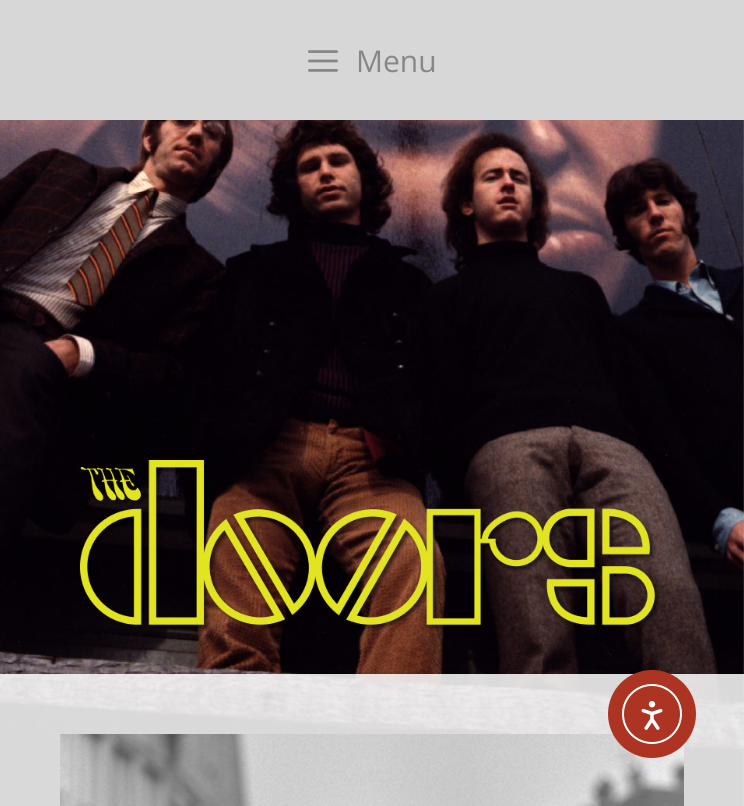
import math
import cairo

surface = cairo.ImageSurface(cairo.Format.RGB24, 744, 806)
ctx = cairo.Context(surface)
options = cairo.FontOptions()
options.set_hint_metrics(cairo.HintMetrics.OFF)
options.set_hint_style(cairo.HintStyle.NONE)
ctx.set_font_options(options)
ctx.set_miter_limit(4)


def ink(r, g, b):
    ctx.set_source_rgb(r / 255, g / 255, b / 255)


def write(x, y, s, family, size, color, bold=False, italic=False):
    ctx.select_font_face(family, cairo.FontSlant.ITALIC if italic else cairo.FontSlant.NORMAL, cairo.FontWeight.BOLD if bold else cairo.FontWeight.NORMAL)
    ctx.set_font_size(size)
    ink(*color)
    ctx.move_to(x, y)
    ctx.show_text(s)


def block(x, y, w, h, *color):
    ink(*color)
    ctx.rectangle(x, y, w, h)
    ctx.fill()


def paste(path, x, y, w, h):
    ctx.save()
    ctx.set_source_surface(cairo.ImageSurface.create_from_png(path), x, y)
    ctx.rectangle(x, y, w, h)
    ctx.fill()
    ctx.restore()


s1 = dict(family="Open Sans", size=30, color=(135, 135, 135))

ink(255, 255, 255)
ctx.paint()
paste("pic1.png", 0, 120, 744, 686)
block(0, 0, 744, 120, 215, 215, 215)
paste("pic2.png", 308, 50, 30, 22)
write(356, 72, "Menu", **s1)
paste("pic3.png", 80, 460, 580, 171)
ctx.set_source_rgba(1, 1, 1, 0.85)
ctx.rectangle(0, 674, 744, 132)
ctx.fill()
paste("pic5.png", 60, 734, 624, 72)
ink(173, 51, 35)
ctx.arc(652, 714, 44, 0, 2 * math.pi)
ctx.fill()
ctx.arc(652, 714, 29, 0, 2 * math.pi)
ink(255, 255, 255)
ctx.stroke()
paste("pic4.png", 641, 701, 22, 29)
surface.write_to_png("screenshot.png")
